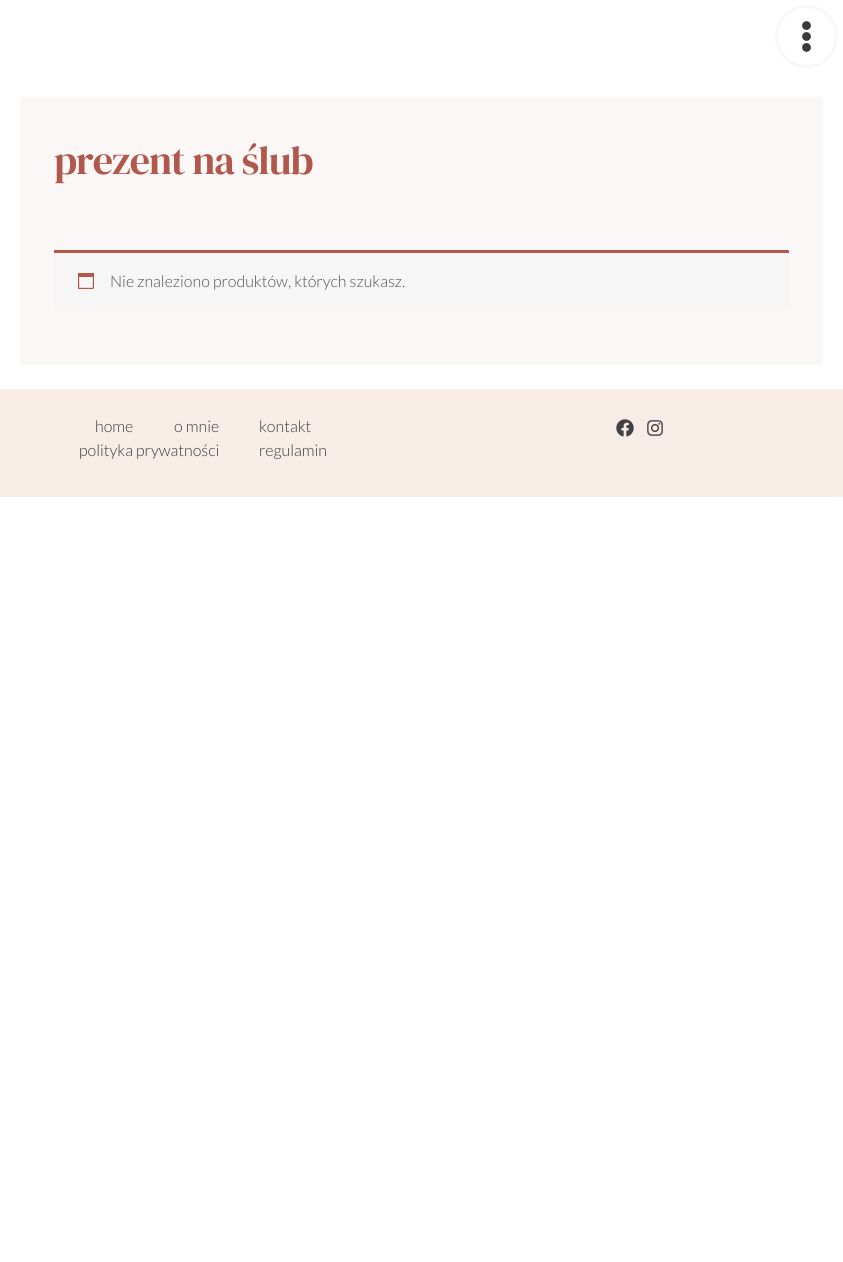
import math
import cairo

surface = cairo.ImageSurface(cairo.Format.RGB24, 843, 1262)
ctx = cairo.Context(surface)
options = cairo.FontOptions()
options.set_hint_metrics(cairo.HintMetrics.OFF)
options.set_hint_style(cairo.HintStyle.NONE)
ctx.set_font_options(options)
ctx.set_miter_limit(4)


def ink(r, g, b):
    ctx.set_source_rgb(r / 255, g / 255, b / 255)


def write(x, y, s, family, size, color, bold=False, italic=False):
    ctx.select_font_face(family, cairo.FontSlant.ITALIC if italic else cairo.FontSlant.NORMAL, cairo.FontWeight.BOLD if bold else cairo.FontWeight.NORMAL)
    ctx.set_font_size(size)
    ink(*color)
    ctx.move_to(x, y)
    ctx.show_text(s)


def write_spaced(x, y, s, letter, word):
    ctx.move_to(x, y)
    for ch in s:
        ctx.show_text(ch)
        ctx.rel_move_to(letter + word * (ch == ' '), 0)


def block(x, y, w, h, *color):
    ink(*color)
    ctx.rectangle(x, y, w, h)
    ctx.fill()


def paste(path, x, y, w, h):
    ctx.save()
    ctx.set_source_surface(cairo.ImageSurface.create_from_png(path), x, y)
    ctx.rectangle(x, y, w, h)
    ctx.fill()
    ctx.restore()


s1 = dict(family="Lato Light", size=16, color=(81, 81, 81))
s2 = dict(family="Lato Light", size=16, color=(58, 58, 58))

ink(255, 255, 255)
ctx.paint()
ctx.arc(806.5, 36.5, 30, 0, 2 * math.pi)
ink(250, 247, 246)
ctx.set_line_width(3)
ctx.stroke()
paste("pic1.png", 802, 21, 9, 31)
block(20, 97, 803, 268, 250, 247, 246)
ctx.select_font_face("DM Serif Display")
ctx.set_font_size(40)
ink(176, 88, 75)
write_spaced(54, 174, "prezent na ślub", -1, 0)
block(54, 253, 735, 56, 247, 246, 247)
block(54, 250, 735, 3, 176, 88, 75)
paste("pic2.png", 78, 273, 16, 16)
write(110, 287, "Nie znaleziono produktów, których szukasz.", **s1)
block(0, 389, 843, 108, 247, 236, 230)
write(95, 432, "home", **s2)
write(174, 432, "o mnie", **s2)
write(259, 432, "kontakt", **s2)
write(79, 456, "polityka prywatności", **s2)
write(259, 456, "regulamin", **s2)
paste("pic3.png", 616, 419, 18, 18)
paste("pic4.png", 647, 420, 16, 16)
surface.write_to_png("screenshot.png")
